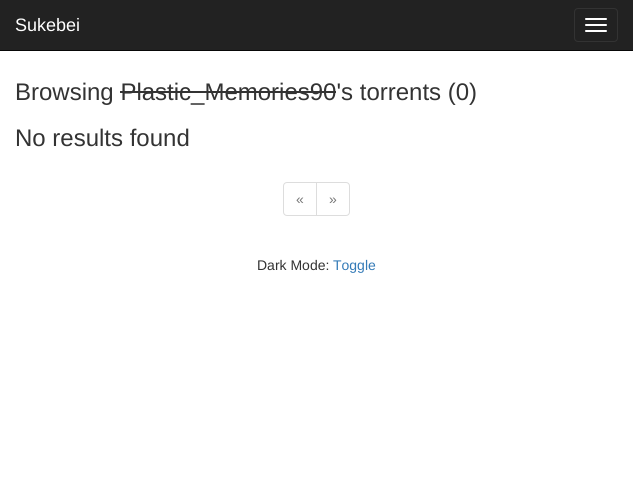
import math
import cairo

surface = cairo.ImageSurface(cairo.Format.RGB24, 633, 496)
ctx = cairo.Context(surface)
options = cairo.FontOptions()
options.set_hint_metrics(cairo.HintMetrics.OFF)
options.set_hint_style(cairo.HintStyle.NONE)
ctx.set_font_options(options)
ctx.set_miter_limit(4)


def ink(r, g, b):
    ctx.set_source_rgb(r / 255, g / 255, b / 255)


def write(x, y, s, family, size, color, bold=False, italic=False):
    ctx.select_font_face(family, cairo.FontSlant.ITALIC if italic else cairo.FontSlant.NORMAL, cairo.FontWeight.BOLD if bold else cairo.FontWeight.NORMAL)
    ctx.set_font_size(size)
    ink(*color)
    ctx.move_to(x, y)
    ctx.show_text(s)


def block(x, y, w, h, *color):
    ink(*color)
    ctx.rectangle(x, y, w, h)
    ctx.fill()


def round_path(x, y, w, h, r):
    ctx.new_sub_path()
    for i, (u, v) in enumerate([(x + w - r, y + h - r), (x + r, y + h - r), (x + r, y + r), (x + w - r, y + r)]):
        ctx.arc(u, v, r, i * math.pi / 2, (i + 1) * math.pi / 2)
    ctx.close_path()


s1 = dict(family="Liberation Sans", size=18, color=(255, 255, 255))
s2 = dict(family="Liberation Sans", size=24, color=(51, 51, 51))
s3 = dict(family="Liberation Sans", size=14, color=(119, 119, 119))
s4 = dict(family="Liberation Sans", size=14, color=(51, 51, 51))
s5 = dict(family="Liberation Sans", size=14, color=(51, 122, 183))

ink(255, 255, 255)
ctx.paint()
block(0, 0, 633, 50, 34, 34, 34)
block(0, 50, 633, 1, 8, 8, 8)
write(15, 31, "Sukebei", **s1)
round_path(574.5, 8.5, 43, 33, 3.5)
ink(51, 51, 51)
ctx.set_line_width(1)
ctx.stroke()
ink(255, 255, 255)
round_path(585, 18, 22, 2, 1)
ctx.fill()
round_path(585, 24, 22, 2, 1)
ctx.fill()
round_path(585, 30, 22, 2, 1)
ctx.fill()
write(15, 100, "Browsing Plastic_Memories90's torrents (0)", **s2)
block(120, 91, 216, 2, 51, 51, 51)
write(15, 146, "No results found", **s2)
ctx.new_path()
ctx.move_to(287, 182.5)
ctx.line_to(316.5, 182.5)
ctx.line_to(316.5, 215.5)
ctx.line_to(287, 215.5)
ctx.curve_to(285, 215.5, 283.5, 214, 283.5, 212)
ctx.line_to(283.5, 186)
ctx.curve_to(283.5, 184, 285, 182.5, 287, 182.5)
ctx.close_path()
ink(221, 221, 221)
ctx.stroke()
write(296, 204, "«", **s3)
ink(255, 255, 255)
ctx.new_path()
ctx.move_to(316.5, 182.5)
ctx.line_to(346, 182.5)
ctx.curve_to(348, 182.5, 349.5, 184, 349.5, 186)
ctx.line_to(349.5, 212)
ctx.curve_to(349.5, 214, 348, 215.5, 346, 215.5)
ctx.line_to(316.5, 215.5)
ctx.close_path()
ctx.fill_preserve()
ink(221, 221, 221)
ctx.stroke()
write(329, 204, "»", **s3)
write(257, 270, "Dark Mode:", **s4)
write(333, 270, "Toggle", **s5)
surface.write_to_png("screenshot.png")
